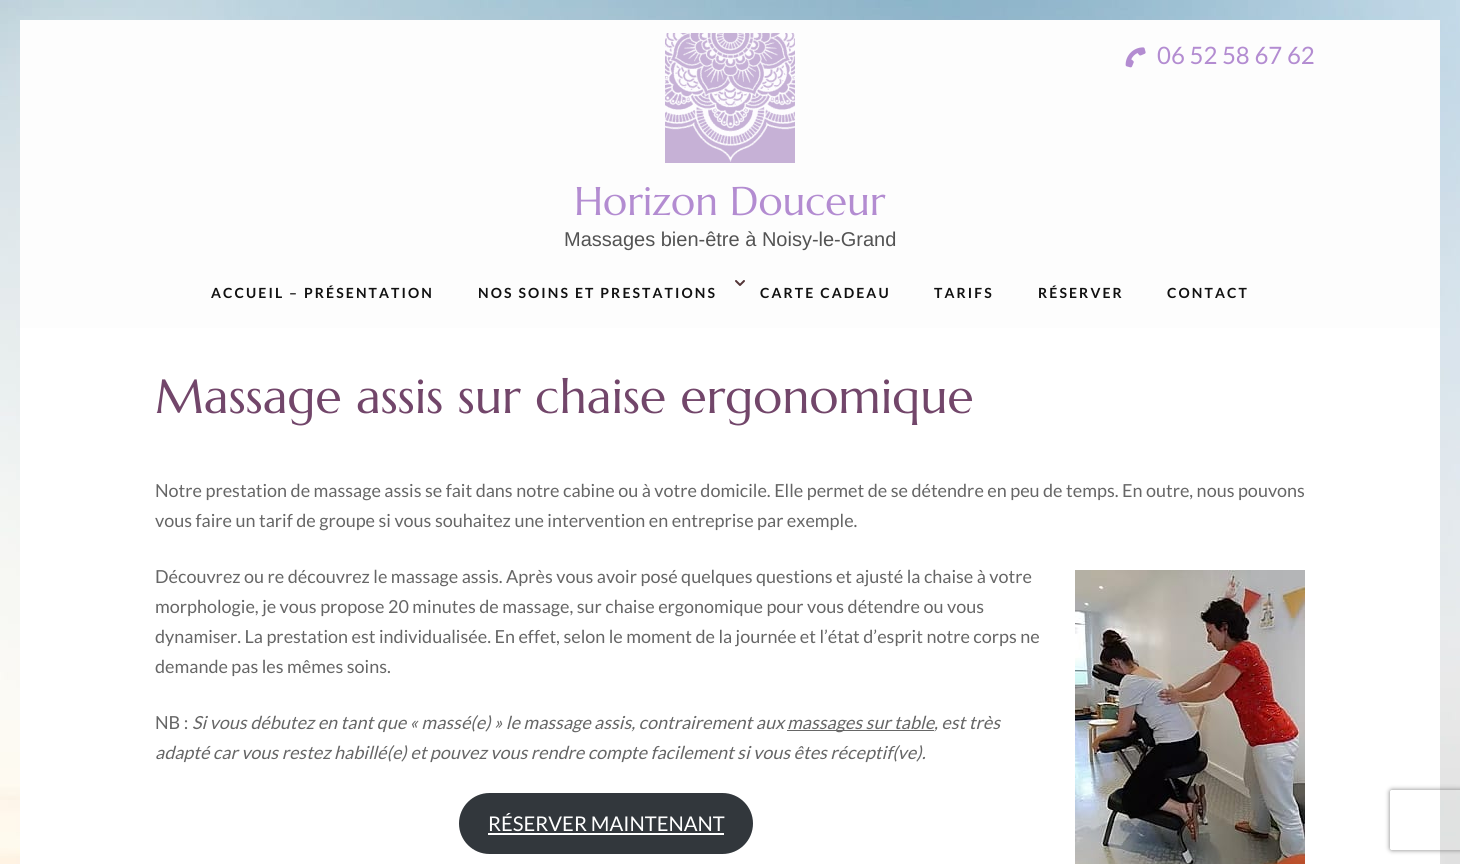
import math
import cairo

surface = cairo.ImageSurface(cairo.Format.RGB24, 1460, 864)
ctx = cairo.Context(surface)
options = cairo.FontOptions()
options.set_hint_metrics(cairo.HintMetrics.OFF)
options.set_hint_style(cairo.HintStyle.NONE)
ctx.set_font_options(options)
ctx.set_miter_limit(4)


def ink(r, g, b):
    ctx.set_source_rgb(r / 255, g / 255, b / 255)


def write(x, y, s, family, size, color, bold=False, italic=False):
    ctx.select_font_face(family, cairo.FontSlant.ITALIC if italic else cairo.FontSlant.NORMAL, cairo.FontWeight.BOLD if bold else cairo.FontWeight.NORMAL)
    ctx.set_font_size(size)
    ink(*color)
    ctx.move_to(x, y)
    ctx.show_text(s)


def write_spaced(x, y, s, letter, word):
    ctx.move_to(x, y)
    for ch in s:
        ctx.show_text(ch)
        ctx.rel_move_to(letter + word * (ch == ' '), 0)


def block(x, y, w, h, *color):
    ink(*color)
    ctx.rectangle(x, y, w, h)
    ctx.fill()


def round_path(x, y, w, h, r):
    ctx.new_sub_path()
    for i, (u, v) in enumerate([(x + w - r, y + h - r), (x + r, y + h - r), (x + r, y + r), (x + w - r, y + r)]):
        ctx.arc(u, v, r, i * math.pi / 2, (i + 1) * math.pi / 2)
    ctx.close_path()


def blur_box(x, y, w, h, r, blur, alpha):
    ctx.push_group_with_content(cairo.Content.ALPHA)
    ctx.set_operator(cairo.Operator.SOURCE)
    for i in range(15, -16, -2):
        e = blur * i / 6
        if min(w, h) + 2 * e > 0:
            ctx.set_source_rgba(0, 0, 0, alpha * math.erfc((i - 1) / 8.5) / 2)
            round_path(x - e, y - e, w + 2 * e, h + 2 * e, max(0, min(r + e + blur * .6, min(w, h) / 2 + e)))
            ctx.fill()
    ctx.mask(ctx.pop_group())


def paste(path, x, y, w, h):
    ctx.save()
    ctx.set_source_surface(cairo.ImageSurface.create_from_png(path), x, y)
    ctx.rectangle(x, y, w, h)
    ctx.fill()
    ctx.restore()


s1 = dict(family="Lato", size=24, color=(179, 140, 209))
s2 = dict(family="Marcellus", size=40, color=(179, 140, 209))
s3 = dict(family="Liberation Sans", size=20, color=(83, 83, 83))
s4 = dict(family="Marcellus", size=48, color=(114, 70, 106))
s5 = dict(family="Lato", size=18, color=(102, 102, 102))
s6 = dict(family="Lato", size=18, color=(102, 102, 102), italic=True)
s7 = dict(family="Lato", size=20.25, color=(255, 255, 255))

ink(255, 255, 255)
ctx.paint()
paste("pic1.png", 0, 0, 1460, 864)
block(20, 328, 1420, 536, 255, 255, 255)
block(20, 20, 1420, 308, 253, 253, 253)
paste("pic2.png", 1125, 47, 21, 21)
write(1157, 64, "06 52 58 67 62", **s1)
paste("pic3.png", 665, 33, 130, 130)
write(574, 215, "Horizon Douceur", **s2)
write(564, 246, "Massages bien-être à Noisy-le-Grand", **s3)
ctx.select_font_face("Lato", cairo.FontSlant.NORMAL, cairo.FontWeight.BOLD)
ctx.set_font_size(14)
ink(17, 17, 17)
write_spaced(211, 298, "ACCUEIL – PRÉSENTATION", 2.1, 0)
ctx.new_path()
ctx.move_to(744, 281)
ctx.line_to(740, 285)
ctx.line_to(736, 281)
ink(83, 53, 55)
ctx.set_line_cap(cairo.LineCap.ROUND)
ctx.set_line_join(cairo.LineJoin.ROUND)
ctx.stroke()
ink(17, 17, 17)
write_spaced(478, 298, "NOS SOINS ET PRESTATIONS", 2.1, 0)
write_spaced(760, 298, "CARTE CADEAU", 2.1, 0)
write_spaced(934, 298, "TARIFS", 2.1, 0)
write_spaced(1038, 298, "RÉSERVER", 2.1, 0)
write_spaced(1167, 298, "CONTACT", 2.1, 0)
write(155, 413, "Massage assis sur chaise ergonomique", **s4)
write(155, 497, "Notre prestation de massage assis se fait dans notre cabine ou à votre domicile. Elle permet de se détendre en peu de temps. En outre, nous pouvons", **s5)
write(155, 527, "vous faire un tarif de groupe si vous souhaitez une intervention en entreprise par exemple.", **s5)
write(155, 583, "Découvrez ou re découvrez le massage assis. Après vous avoir posé quelques questions et ajusté la chaise à votre", **s5)
write(155, 613, "morphologie, je vous propose 20 minutes de massage, sur chaise ergonomique pour vous détendre ou vous", **s5)
write(155, 643, "dynamiser. La prestation est individualisée. En effet, selon le moment de la journée et l’état d’esprit notre corps ne", **s5)
write(155, 673, "demande pas les mêmes soins.", **s5)
paste("pic4.png", 1075, 570, 230, 294)
write(155, 729, "NB :", **s5)
write(192, 729, "Si vous débutez en tant que « massé(e) » le massage assis, contrairement aux", **s6)
block(787, 730, 147, 1, 102, 102, 102)
write(787, 729, "massages sur table, est très", **s6)
write(155, 759, "adapté car vous restez habillé(e) et pouvez vous rendre compte facilement si vous êtes réceptif(ve).", **s6)
ink(50, 55, 60)
round_path(459, 793, 294, 61, 30.5)
ctx.fill()
write(488, 831, "RÉSERVER MAINTENANT", **s7)
block(488, 833, 236, 2, 255, 255, 255)
ctx.save()
ctx.set_fill_rule(cairo.FillRule.EVEN_ODD)
ctx.new_path()
ctx.move_to(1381, 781)
ctx.line_to(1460, 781)
ctx.line_to(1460, 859)
ctx.line_to(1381, 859)
ctx.close_path()
ctx.move_to(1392, 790)
ctx.line_to(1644, 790)
ctx.curve_to(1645, 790, 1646, 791, 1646, 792)
ctx.line_to(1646, 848)
ctx.curve_to(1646, 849, 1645, 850, 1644, 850)
ctx.line_to(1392, 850)
ctx.curve_to(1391, 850, 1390, 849, 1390, 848)
ctx.line_to(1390, 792)
ctx.curve_to(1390, 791, 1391, 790, 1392, 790)
ctx.close_path()
ctx.clip()
ink(128, 128, 128)
blur_box(1390, 790, 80, 60, 2, 2.5, 1)
ctx.restore()
surface.write_to_png("screenshot.png")
